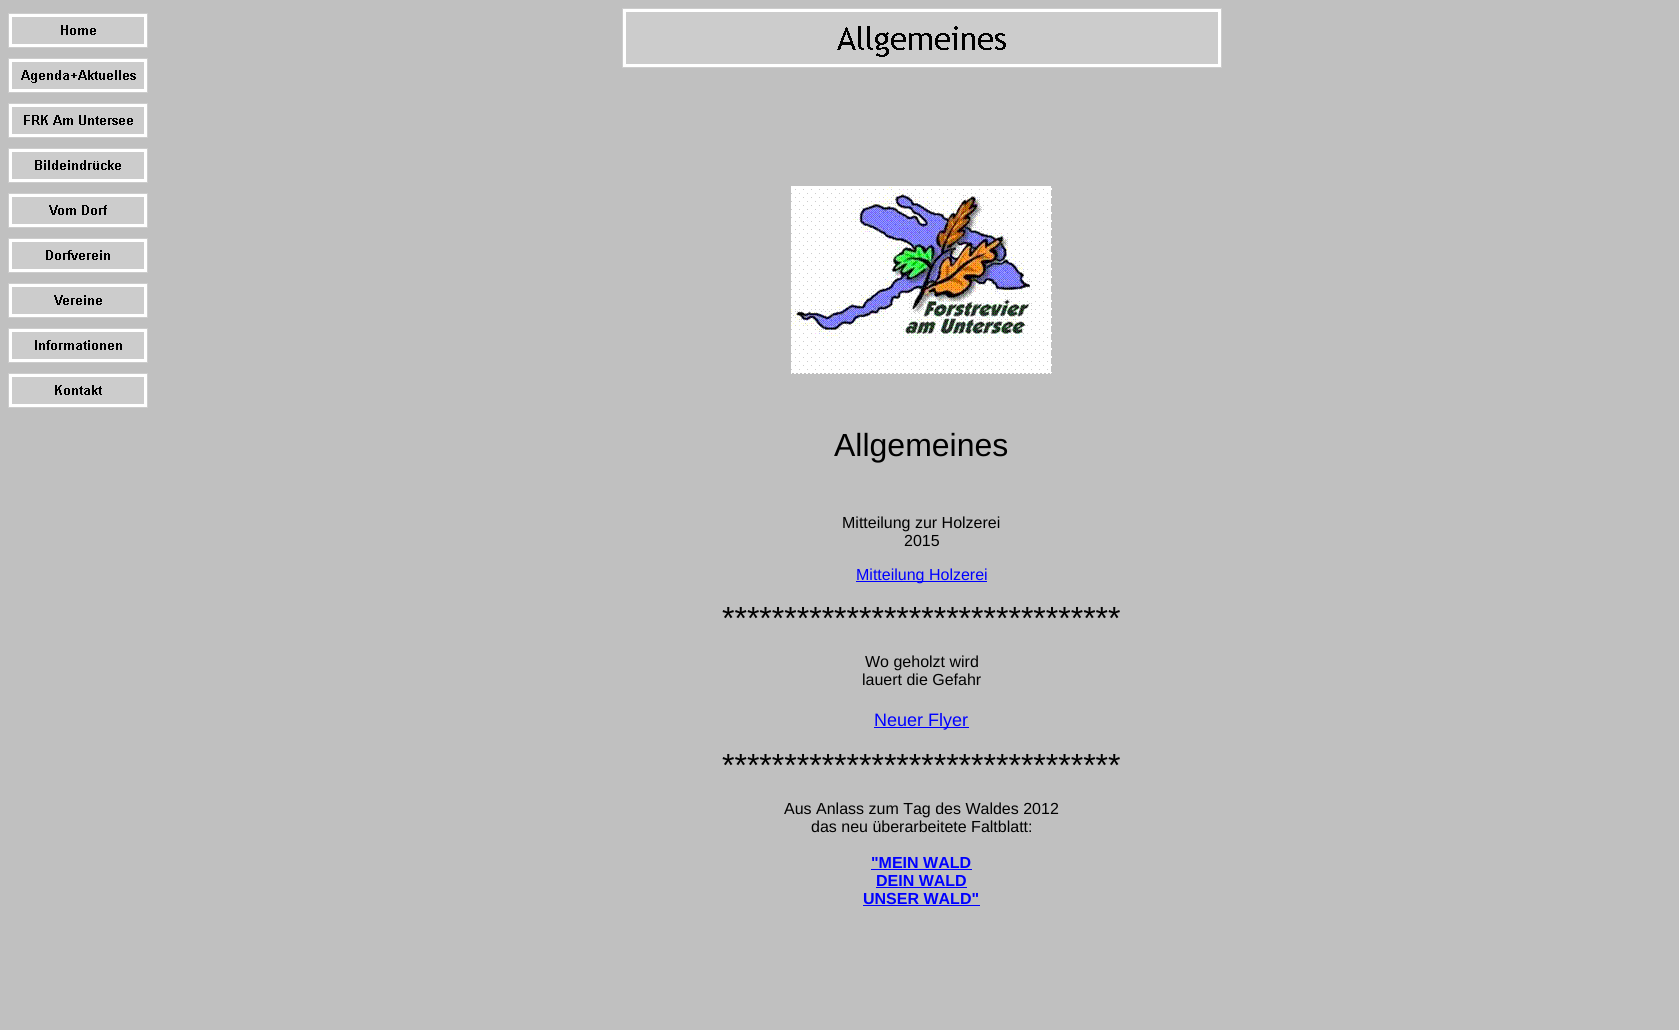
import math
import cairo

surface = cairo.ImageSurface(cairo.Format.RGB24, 1679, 1030)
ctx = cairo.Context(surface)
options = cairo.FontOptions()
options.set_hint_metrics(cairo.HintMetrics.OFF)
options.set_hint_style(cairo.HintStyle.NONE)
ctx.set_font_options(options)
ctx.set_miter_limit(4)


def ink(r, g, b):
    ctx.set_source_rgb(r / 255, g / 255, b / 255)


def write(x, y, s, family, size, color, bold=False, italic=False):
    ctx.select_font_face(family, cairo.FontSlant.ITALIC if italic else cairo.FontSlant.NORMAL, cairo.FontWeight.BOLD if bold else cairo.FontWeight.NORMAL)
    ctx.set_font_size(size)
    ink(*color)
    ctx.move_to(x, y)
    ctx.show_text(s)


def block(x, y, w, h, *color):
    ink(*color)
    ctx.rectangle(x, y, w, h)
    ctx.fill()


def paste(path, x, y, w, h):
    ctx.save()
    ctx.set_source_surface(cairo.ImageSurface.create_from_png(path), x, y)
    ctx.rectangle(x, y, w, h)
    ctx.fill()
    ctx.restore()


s1 = dict(family="Liberation Sans", size=32, color=(0, 0, 0))
s2 = dict(family="Liberation Sans", size=16, color=(0, 0, 0))
s3 = dict(family="Liberation Sans", size=16, color=(0, 0, 255))
s4 = dict(family="Liberation Sans", size=18, color=(0, 0, 255))
s5 = dict(family="Liberation Sans", size=16, color=(0, 0, 255), bold=True)

ink(192, 192, 192)
ctx.paint()
paste("pic1.png", 8, 13, 140, 35)
paste("pic2.png", 8, 58, 140, 35)
paste("pic3.png", 8, 103, 140, 35)
paste("pic4.png", 8, 148, 140, 35)
paste("pic5.png", 8, 193, 140, 35)
paste("pic6.png", 8, 238, 140, 35)
paste("pic7.png", 8, 283, 140, 35)
paste("pic8.png", 8, 328, 140, 35)
paste("pic9.png", 8, 373, 140, 35)
paste("pic10.png", 622, 8, 600, 60)
paste("pic11.png", 791, 186, 261, 188)
write(834, 456, "Allgemeines", **s1)
write(842, 528, "Mitteilung zur Holzerei", **s2)
write(904, 546, "2015", **s2)
block(856, 581, 131, 1, 0, 0, 255)
write(856, 580, "Mitteilung Holzerei", **s3)
write(722, 629, "********************************", **s1)
write(865, 667, "Wo geholzt wird", **s2)
write(862, 685, "lauert die Gefahr", **s2)
block(874, 727, 95, 1, 0, 0, 255)
write(874, 726, "Neuer Flyer", **s4)
write(722, 776, "********************************", **s1)
write(784, 814, "Aus Anlass zum Tag des Waldes 2012", **s2)
write(811, 832, "das neu überarbeitete Faltblatt:", **s2)
write(871, 868, "\"MEIN WALD", **s5)
block(871, 869, 101, 1, 0, 0, 255)
write(876, 886, "DEIN WALD", **s5)
block(876, 887, 91, 1, 0, 0, 255)
write(863, 904, "UNSER WALD\"", **s5)
block(863, 905, 117, 1, 0, 0, 255)
surface.write_to_png("screenshot.png")
